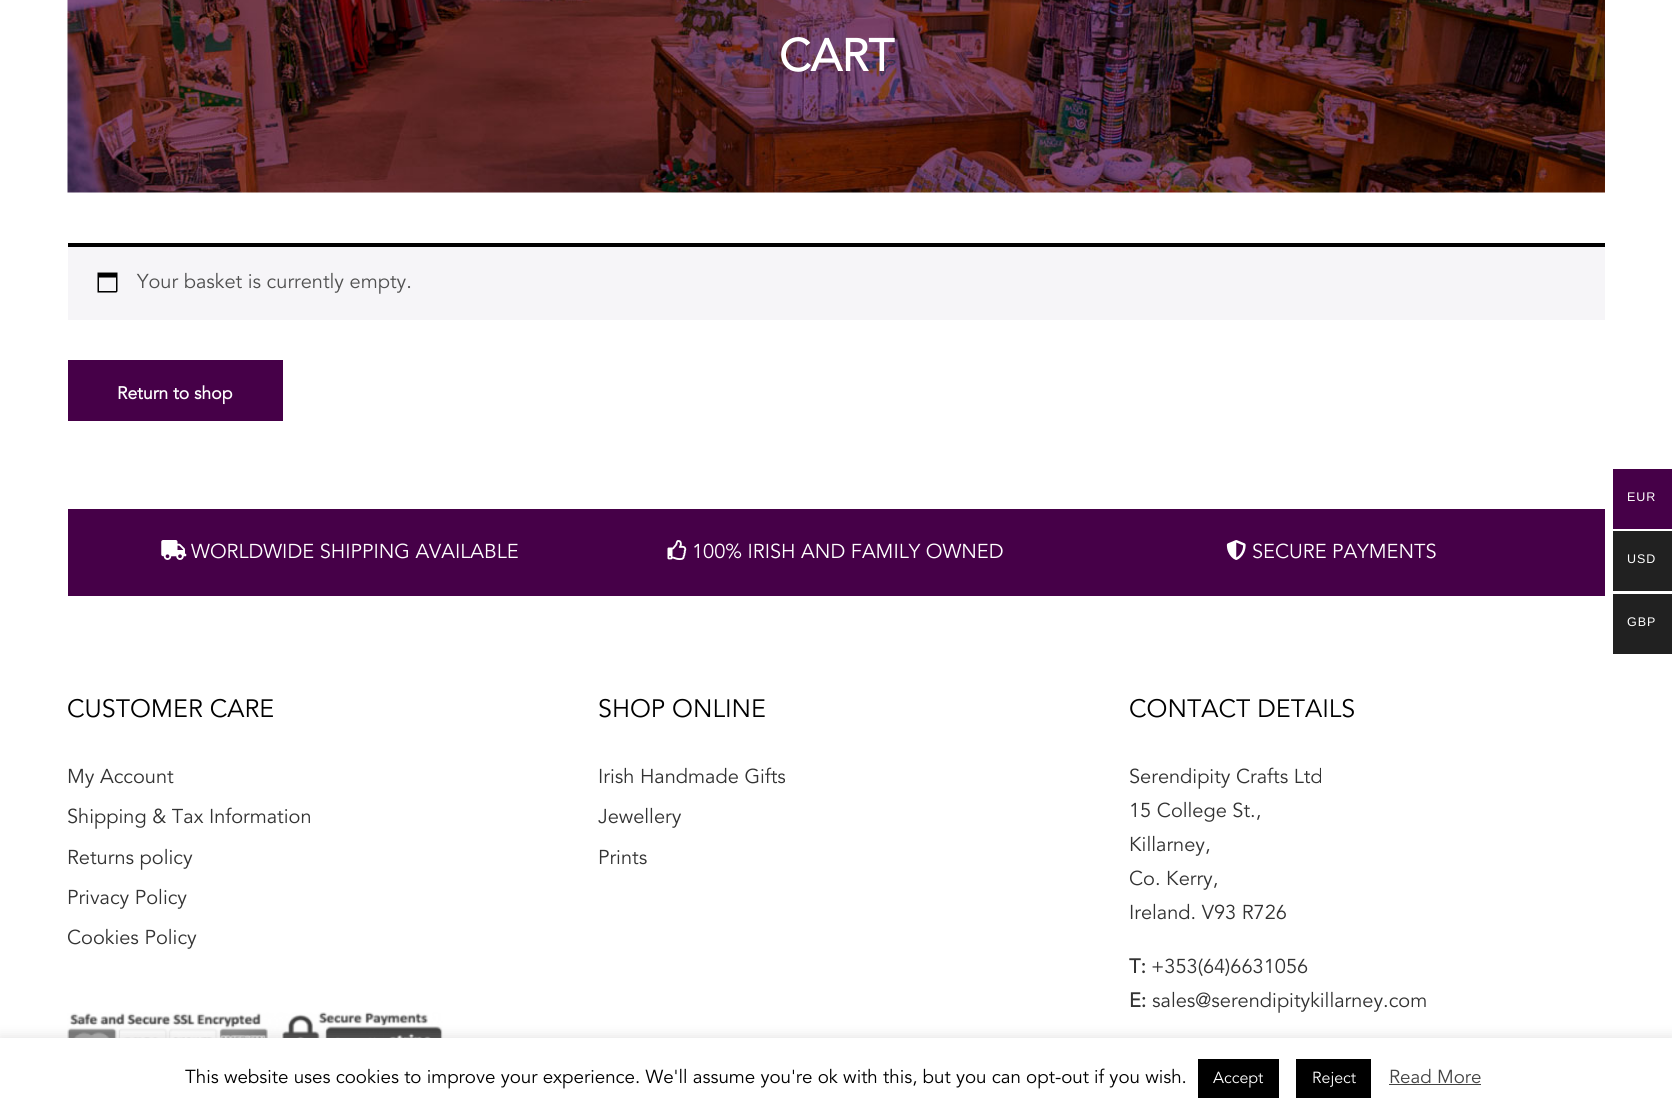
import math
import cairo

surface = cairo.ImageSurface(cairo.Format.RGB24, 1672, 1118)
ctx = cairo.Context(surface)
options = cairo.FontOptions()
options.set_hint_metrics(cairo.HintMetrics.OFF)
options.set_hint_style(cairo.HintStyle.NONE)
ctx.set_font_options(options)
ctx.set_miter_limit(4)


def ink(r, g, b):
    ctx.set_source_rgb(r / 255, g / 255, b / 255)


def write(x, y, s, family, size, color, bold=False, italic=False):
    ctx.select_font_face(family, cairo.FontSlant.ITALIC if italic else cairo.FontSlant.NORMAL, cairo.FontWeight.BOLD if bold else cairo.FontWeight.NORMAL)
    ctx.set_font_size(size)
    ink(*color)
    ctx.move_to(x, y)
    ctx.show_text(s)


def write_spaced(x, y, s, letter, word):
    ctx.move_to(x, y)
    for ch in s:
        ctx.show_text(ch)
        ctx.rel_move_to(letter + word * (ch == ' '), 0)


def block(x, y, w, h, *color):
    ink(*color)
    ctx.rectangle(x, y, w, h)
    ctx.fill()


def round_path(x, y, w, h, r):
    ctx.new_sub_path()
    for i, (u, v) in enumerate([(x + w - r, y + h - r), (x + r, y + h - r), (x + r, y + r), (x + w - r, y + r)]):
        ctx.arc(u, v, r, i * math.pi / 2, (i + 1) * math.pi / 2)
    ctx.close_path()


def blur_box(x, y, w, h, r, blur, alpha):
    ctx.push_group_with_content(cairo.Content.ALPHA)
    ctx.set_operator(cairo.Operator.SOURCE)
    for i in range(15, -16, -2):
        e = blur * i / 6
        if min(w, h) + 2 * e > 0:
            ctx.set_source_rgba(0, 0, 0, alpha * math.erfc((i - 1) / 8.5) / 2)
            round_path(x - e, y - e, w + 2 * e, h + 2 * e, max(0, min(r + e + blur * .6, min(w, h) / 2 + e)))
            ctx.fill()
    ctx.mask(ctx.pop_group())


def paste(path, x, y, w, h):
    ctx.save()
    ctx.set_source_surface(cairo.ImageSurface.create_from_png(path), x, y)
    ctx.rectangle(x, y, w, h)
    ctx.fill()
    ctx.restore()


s1 = dict(family="Avenir", size=45, color=(255, 255, 255), bold=True)
s2 = dict(family="Avenir", size=20, color=(81, 81, 81))
s3 = dict(family="Avenir", size=17.5, color=(255, 255, 255), bold=True)
s4 = dict(family="Avenir", size=20, color=(255, 255, 255))
s5 = dict(family="Avenir", size=25, color=(0, 0, 0))
s6 = dict(family="Avenir", size=20, color=(51, 51, 51))
s7 = dict(family="Avenir", size=20, color=(51, 51, 51), bold=True)
s8 = dict(family="Avenir", size=18.75, color=(0, 0, 0))
s9 = dict(family="Avenir", size=16, color=(255, 255, 255))
s10 = dict(family="Avenir", size=18.75, color=(68, 68, 68))

ink(255, 255, 255)
ctx.paint()
paste("pic1.png", 67, 0, 1538, 193)
write(779, 71, "CART", **s1)
block(68, 247, 1537, 73, 246, 245, 248)
block(68, 243, 1537, 4, 0, 0, 0)
paste("pic2.png", 97, 272, 21, 21)
write(137, 288, "Your basket is currently empty.", **s2)
block(68, 360, 215, 61, 70, 0, 72)
write(117, 399, "Return to shop", **s3)
block(68, 509, 1537, 87, 70, 0, 72)
paste("pic3.png", 161, 540, 26, 20)
write(191, 558, "WORLDWIDE SHIPPING AVAILABLE", **s4)
paste("pic4.png", 667, 540, 20, 20)
write(692, 558, "100% IRISH AND FAMILY OWNED", **s4)
paste("pic5.png", 1226, 540, 20, 20)
write(1252, 558, "SECURE PAYMENTS", **s4)
write(67, 717, "CUSTOMER CARE", **s5)
write(67, 783, "My Account", **s6)
write(67, 823, "Shipping & Tax Information", **s6)
write(67, 864, "Returns policy", **s6)
write(67, 904, "Privacy Policy", **s6)
write(67, 944, "Cookies Policy", **s6)
paste("pic6.png", 67, 1012, 376, 26)
write(598, 717, "SHOP ONLINE", **s5)
write(598, 783, "Irish Handmade Gifts", **s6)
write(598, 823, "Jewellery", **s6)
write(598, 864, "Prints", **s6)
write(1129, 717, "CONTACT DETAILS", **s5)
write(1129, 783, "Serendipity Crafts Ltd", **s6)
write(1129, 817, "15 College St.,", **s6)
write(1129, 851, "Killarney,", **s6)
write(1129, 885, "Co. Kerry,", **s6)
write(1129, 919, "Ireland. V93 R726", **s6)
write(1129, 973, "T:", **s7)
write(1151, 973, "+353(64)6631056", **s6)
write(1129, 1007, "E:", **s7)
write(1152, 1007, "sales@serendipitykillarney.com", **s6)
block(1613, 469, 59, 60, 70, 0, 72)
ctx.select_font_face("Liberation Sans")
ctx.set_font_size(12.5)
ink(255, 255, 255)
write_spaced(1627, 501, "EUR", 1, 0)
block(1613, 531, 59, 60, 33, 33, 33)
ink(255, 255, 255)
write_spaced(1627, 563, "USD", 1, 0)
block(1613, 594, 59, 60, 33, 33, 33)
ink(255, 255, 255)
write_spaced(1627, 626, "GBP", 1, 0)
ink(172, 171, 171)
blur_box(0, 1036, 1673, 82, 0, 6, 0.3)
block(0, 1038, 1672, 80, 255, 255, 255)
write(185, 1083, "This website uses cookies to improve your experience. We'll assume you're ok with this, but you can opt-out if you wish.", **s8)
block(1198, 1059, 81, 39, 0, 0, 0)
write(1213, 1083, "Accept", **s9)
block(1296, 1059, 75, 39, 0, 0, 0)
write(1312, 1083, "Reject", **s9)
write(1389, 1083, "Read More", **s10)
block(1389, 1084, 92, 1, 68, 68, 68)
surface.write_to_png("screenshot.png")
